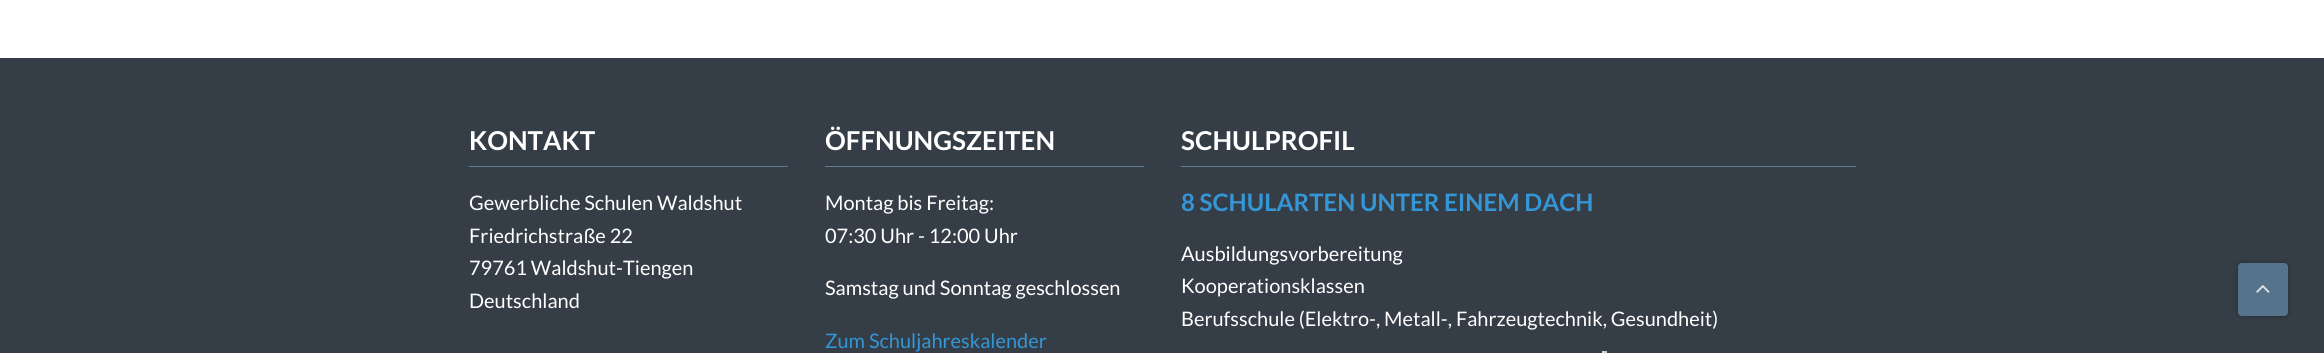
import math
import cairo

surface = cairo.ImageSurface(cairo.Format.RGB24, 2324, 353)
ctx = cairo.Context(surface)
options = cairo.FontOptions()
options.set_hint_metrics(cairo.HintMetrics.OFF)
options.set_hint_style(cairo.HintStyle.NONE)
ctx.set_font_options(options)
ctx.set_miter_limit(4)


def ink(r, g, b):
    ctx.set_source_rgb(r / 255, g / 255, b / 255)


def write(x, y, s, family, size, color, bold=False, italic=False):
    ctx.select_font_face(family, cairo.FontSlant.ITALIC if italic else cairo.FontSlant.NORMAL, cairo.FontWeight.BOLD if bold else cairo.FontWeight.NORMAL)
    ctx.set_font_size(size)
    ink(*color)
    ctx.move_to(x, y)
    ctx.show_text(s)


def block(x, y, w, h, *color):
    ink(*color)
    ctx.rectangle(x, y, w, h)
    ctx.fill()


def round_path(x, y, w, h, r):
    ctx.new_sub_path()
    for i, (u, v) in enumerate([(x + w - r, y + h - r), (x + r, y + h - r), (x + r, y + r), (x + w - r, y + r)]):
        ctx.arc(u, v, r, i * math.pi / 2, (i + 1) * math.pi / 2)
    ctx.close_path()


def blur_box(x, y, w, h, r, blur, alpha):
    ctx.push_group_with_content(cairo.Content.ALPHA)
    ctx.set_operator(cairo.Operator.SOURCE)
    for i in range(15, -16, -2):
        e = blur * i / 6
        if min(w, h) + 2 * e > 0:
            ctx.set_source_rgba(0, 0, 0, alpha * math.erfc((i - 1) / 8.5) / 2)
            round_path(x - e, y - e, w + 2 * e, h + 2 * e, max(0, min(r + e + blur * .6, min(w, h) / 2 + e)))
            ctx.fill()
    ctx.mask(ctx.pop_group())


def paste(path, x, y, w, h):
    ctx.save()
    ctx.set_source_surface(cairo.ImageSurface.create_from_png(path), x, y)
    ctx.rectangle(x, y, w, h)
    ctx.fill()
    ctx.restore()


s1 = dict(family="Lato", size=26, color=(255, 255, 255), bold=True)
s2 = dict(family="Lato", size=20, color=(255, 255, 255))
s3 = dict(family="Lato", size=20, color=(52, 150, 213))
s4 = dict(family="Lato", size=24, color=(52, 150, 213), bold=True)

ink(255, 255, 255)
ctx.paint()
block(0, 58, 2324, 295, 53, 61, 71)
block(469, 166, 319, 1, 91, 126, 152)
write(469, 150, "KONTAKT", **s1)
write(469, 210, "Gewerbliche Schulen Waldshut", **s2)
write(469, 243, "Friedrichstraße 22", **s2)
write(469, 275, "79761 Waldshut-Tiengen", **s2)
write(469, 308, "Deutschland", **s2)
block(825, 166, 319, 1, 91, 126, 152)
write(825, 150, "ÖFFNUNGSZEITEN", **s1)
write(825, 210, "Montag bis Freitag:", **s2)
write(825, 243, "07:30 Uhr - 12:00 Uhr", **s2)
write(825, 295, "Samstag und Sonntag geschlossen", **s2)
write(825, 348, "Zum Schuljahreskalender", **s3)
block(1181, 166, 675, 1, 91, 126, 152)
write(1181, 150, "SCHULPROFIL", **s1)
write(1181, 211, "8 SCHULARTEN UNTER EINEM DACH", **s4)
write(1181, 261, "Ausbildungsvorbereitung", **s2)
write(1181, 293, "Kooperationsklassen", **s2)
write(1181, 326, "Berufsschule (Elektro-, Metall-, Fahrzeugtechnik, Gesundheit)", **s2)
write(1601, 358, "-", **s2)
ink(8, 9, 11)
blur_box(2238, 263, 50, 53, 4, 3, 0.3)
ink(85, 116, 140)
round_path(2238, 263, 50, 53, 4)
ctx.fill()
paste("pic1.png", 2256, 285, 14, 8)
surface.write_to_png("screenshot.png")
